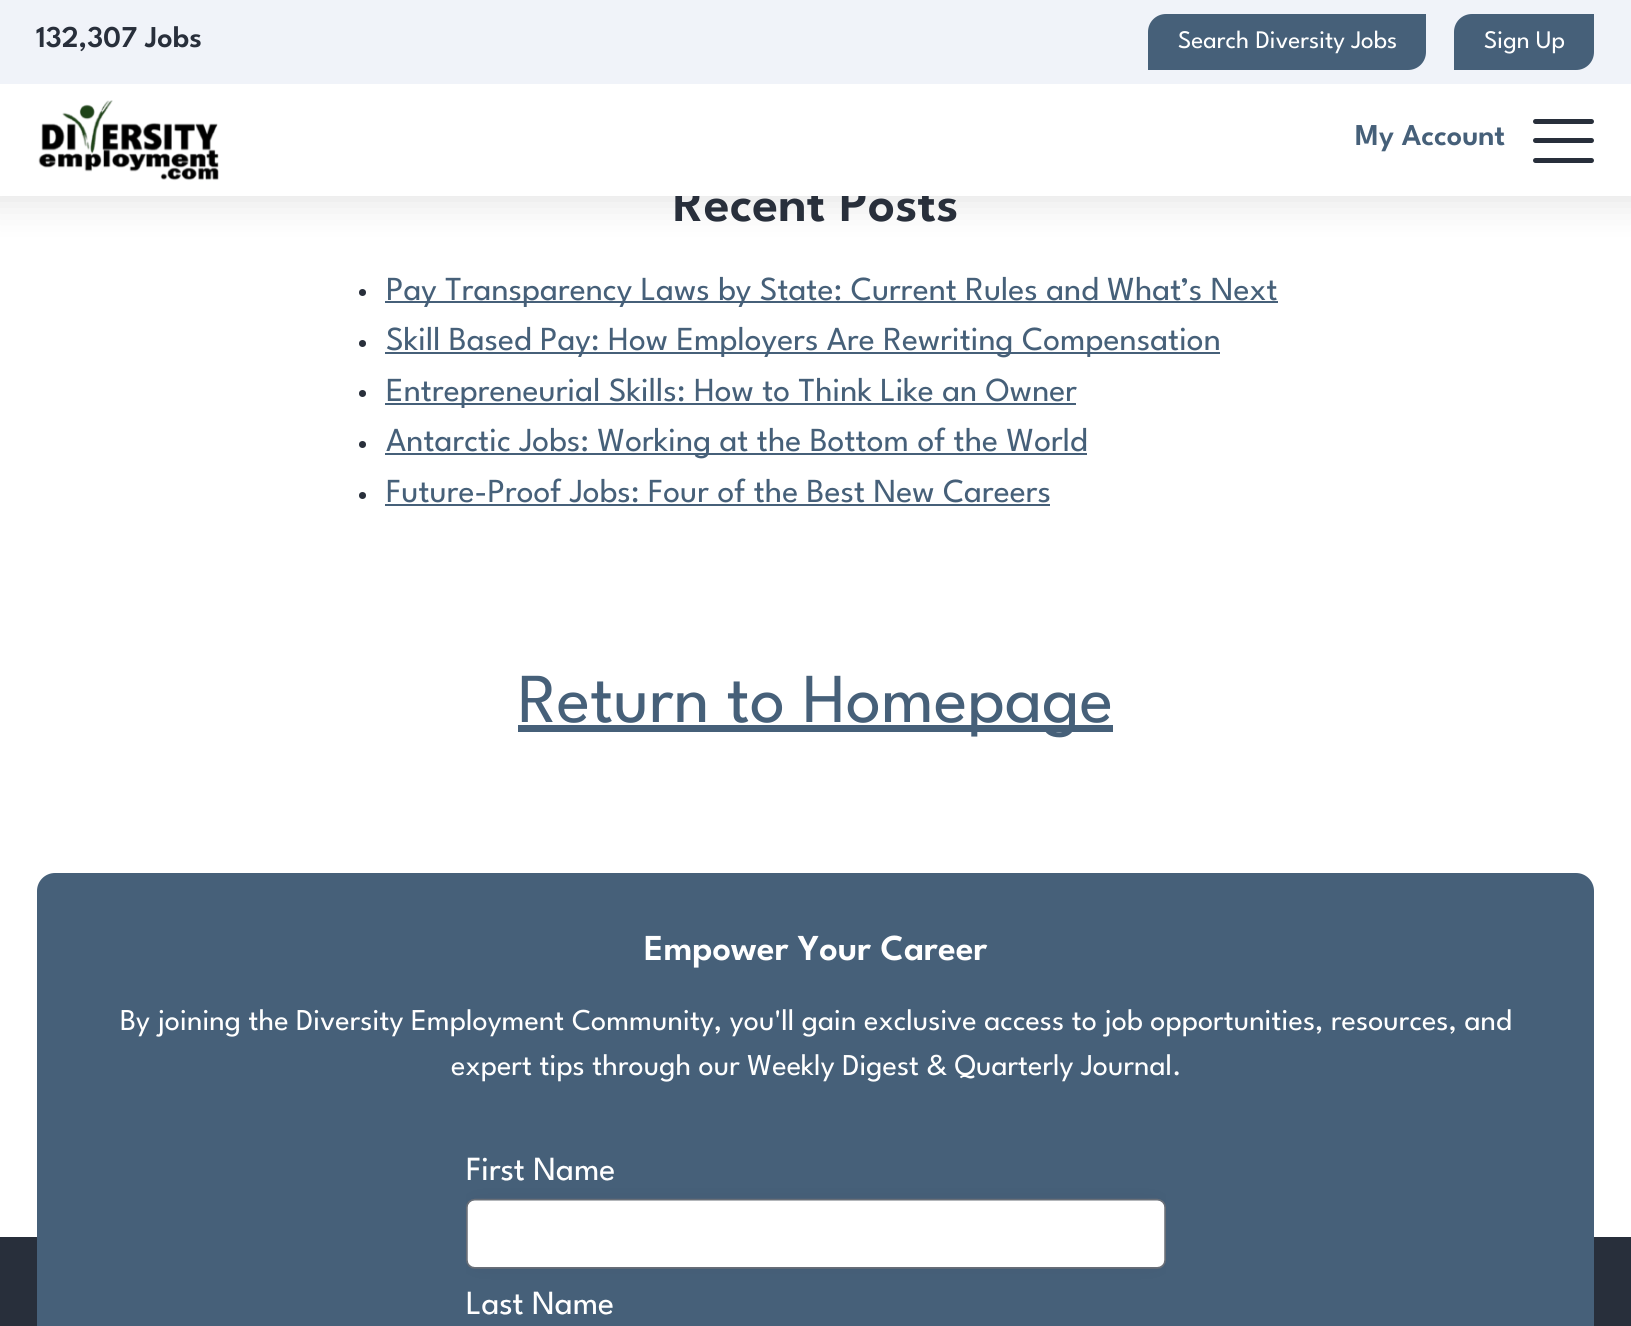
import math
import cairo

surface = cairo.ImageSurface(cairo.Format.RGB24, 1631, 1326)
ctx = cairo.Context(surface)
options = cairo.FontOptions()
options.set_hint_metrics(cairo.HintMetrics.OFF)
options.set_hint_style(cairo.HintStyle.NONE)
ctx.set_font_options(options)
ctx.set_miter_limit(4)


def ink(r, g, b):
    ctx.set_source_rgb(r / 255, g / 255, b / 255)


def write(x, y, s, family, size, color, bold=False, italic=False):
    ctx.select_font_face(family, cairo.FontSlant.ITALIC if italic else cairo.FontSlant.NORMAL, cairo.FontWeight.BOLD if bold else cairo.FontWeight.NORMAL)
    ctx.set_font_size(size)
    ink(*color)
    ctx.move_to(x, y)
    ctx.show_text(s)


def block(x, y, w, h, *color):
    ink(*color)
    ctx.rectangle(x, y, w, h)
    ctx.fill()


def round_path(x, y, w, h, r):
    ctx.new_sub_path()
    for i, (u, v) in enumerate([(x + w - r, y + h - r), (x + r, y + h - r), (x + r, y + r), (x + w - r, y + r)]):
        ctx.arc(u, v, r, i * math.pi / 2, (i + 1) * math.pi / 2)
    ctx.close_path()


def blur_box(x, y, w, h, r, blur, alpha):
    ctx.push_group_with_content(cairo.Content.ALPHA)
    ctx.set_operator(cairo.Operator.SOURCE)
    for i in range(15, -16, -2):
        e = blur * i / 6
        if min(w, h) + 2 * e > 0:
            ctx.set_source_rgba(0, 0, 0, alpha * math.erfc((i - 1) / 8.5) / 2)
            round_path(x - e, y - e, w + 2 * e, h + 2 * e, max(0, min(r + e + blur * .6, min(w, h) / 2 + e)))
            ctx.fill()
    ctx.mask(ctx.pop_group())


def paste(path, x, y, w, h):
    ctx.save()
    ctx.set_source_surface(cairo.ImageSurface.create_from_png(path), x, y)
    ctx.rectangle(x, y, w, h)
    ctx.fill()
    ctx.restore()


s1 = dict(family="League Spartan Thin", size=53.25, color=(40, 47, 59))
s2 = dict(family="League Spartan Thin", size=30.25, color=(40, 47, 59))
s3 = dict(family="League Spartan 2 Thin", size=25.25, color=(255, 255, 255))
s4 = dict(family="League Spartan Thin", size=30.25, color=(70, 96, 121))
s5 = dict(family="League Spartan 2 Thin", size=33.6, color=(70, 96, 121))
s6 = dict(family="League Spartan 2 Thin", size=70, color=(70, 96, 121))
s7 = dict(family="League Spartan Thin", size=36.5, color=(255, 255, 255))
s8 = dict(family="League Spartan 2 Thin", size=30.25, color=(255, 255, 255))

ink(255, 255, 255)
ctx.paint()
ink(0, 0, 0)
blur_box(-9, -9, 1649, 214, 0, 17.5, 0.1)
write(673, 221, "Recent Posts", **s1)
block(0, 84, 1631, 112, 255, 255, 255)
block(0, 0, 1631, 84, 240, 243, 249)
write(36, 47, "132,307 Jobs", **s2)
ink(70, 96, 121)
ctx.new_path()
ctx.move_to(1166, 15)
ctx.line_to(1425, 15)
ctx.line_to(1425, 52)
ctx.curve_to(1425, 61.5, 1417.5, 69, 1408, 69)
ctx.line_to(1149, 69)
ctx.line_to(1149, 32)
ctx.curve_to(1149, 22.5, 1156.5, 15, 1166, 15)
ctx.close_path()
ctx.fill_preserve()
ctx.stroke()
write(1178, 48, "Search Diversity Jobs", **s3)
ink(70, 96, 121)
ctx.new_path()
ctx.move_to(1472, 15)
ctx.line_to(1593, 15)
ctx.line_to(1593, 52)
ctx.curve_to(1593, 61.5, 1585.5, 69, 1576, 69)
ctx.line_to(1455, 69)
ctx.line_to(1455, 32)
ctx.curve_to(1455, 22.5, 1462.5, 15, 1472, 15)
ctx.close_path()
ctx.fill_preserve()
ctx.stroke()
write(1484, 48, "Sign Up", **s3)
paste("pic1.png", 38, 100, 181, 81)
write(1355, 145, "My Account", **s4)
ink(40, 47, 59)
round_path(1533, 119, 61, 5, 2.5)
ctx.fill()
round_path(1533, 138, 61, 5, 2.5)
ctx.fill()
round_path(1533, 158, 61, 5, 2.5)
ctx.fill()
ctx.arc(362.5, 292.5, 3.5, 0, 2 * math.pi)
ctx.fill()
block(385, 301, 893, 2, 70, 96, 121)
write(386, 300, "Pay Transparency Laws by State: Current Rules and What’s Next", **s5)
ink(40, 47, 59)
ctx.new_path()
ctx.arc(362.5, 343.5, 3.5, 0, 2 * math.pi)
ctx.fill()
block(385, 352, 835, 2, 70, 96, 121)
write(386, 350, "Skill Based Pay: How Employers Are Rewriting Compensation", **s5)
ink(40, 47, 59)
ctx.new_path()
ctx.arc(362.5, 393.5, 3.5, 0, 2 * math.pi)
ctx.fill()
block(385, 403, 691, 2, 70, 96, 121)
write(386, 401, "Entrepreneurial Skills: How to Think Like an Owner", **s5)
ink(40, 47, 59)
ctx.new_path()
ctx.arc(362.5, 444.5, 3.5, 0, 2 * math.pi)
ctx.fill()
block(385, 453, 702, 2, 70, 96, 121)
write(386, 451, "Antarctic Jobs: Working at the Bottom of the World", **s5)
ink(40, 47, 59)
ctx.new_path()
ctx.arc(362.5, 495.5, 3.5, 0, 2 * math.pi)
ctx.fill()
write(386, 502, "Future-Proof Jobs: Four of the Best New Careers", **s5)
block(385, 504, 665, 2, 70, 96, 121)
block(518, 725, 595, 7, 70, 96, 121)
write(518, 722, "Return to Homepage", **s6)
block(0, 1237, 1631, 89, 40, 47, 59)
ink(70, 96, 121)
round_path(37, 873, 1557, 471, 18)
ctx.fill()
write(644, 960, "Empower Your Career", **s7)
write(120, 1030, "By joining the Diversity Employment Community, you'll gain exclusive access to job opportunities, resources, and", **s8)
write(451, 1075, "expert tips through our Weekly Digest & Quarterly Journal.", **s8)
paste("pic2.png", 466, 1157, 700, 158)
surface.write_to_png("screenshot.png")
